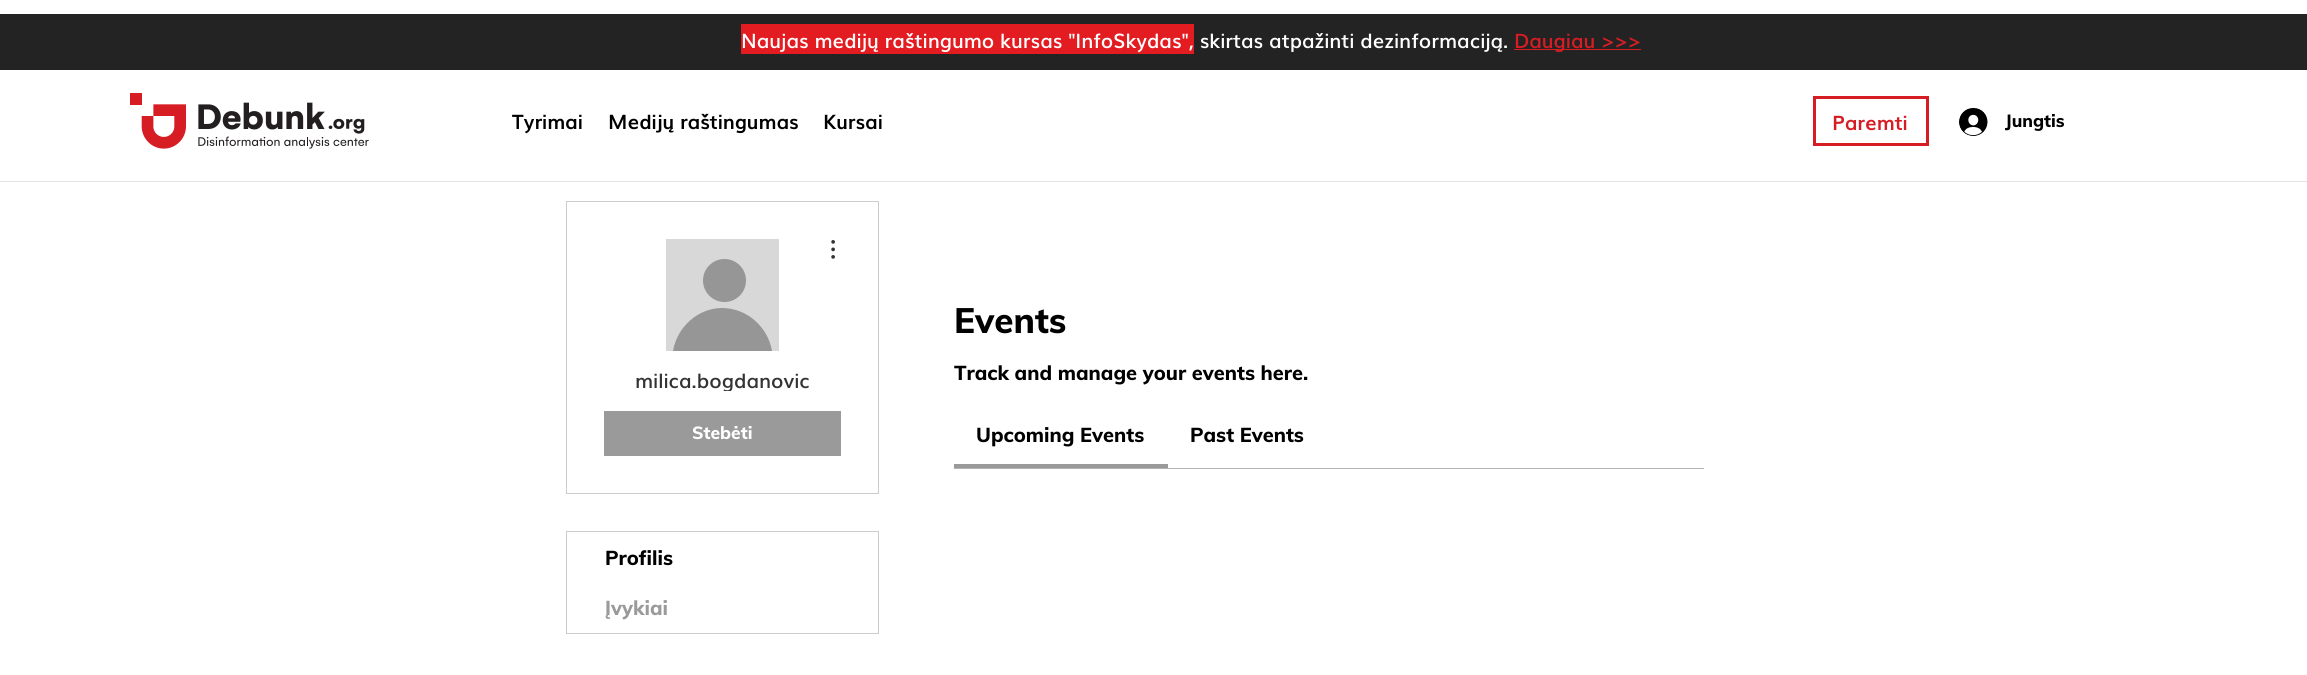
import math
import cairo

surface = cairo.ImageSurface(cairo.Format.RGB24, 2307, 675)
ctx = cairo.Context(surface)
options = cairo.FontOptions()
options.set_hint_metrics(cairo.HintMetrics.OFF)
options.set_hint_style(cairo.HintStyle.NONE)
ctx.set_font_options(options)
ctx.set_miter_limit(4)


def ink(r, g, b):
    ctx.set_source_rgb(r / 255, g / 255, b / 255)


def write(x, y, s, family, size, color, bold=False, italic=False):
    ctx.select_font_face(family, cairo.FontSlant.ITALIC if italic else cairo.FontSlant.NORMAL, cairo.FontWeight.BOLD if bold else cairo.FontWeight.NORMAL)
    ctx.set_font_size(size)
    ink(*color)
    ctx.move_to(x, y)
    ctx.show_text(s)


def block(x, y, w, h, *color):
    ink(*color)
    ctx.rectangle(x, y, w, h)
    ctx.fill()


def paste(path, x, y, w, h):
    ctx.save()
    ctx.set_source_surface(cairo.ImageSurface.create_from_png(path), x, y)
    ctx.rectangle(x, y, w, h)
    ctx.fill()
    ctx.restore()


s1 = dict(family="Muli SemiBold", size=20, color=(255, 255, 255))
s2 = dict(family="Muli SemiBold", size=20, color=(215, 29, 36))
s3 = dict(family="Muli", size=20, color=(0, 0, 0), bold=True)
s4 = dict(family="Muli", size=20, color=(215, 29, 36), bold=True)
s5 = dict(family="Muli ExtraBold", size=17.5, color=(0, 0, 0))
s6 = dict(family="Muli SemiBold", size=20, color=(51, 51, 51))
s7 = dict(family="Muli ExtraBold", size=17.5, color=(255, 255, 255))
s8 = dict(family="Muli ExtraBold", size=20, color=(0, 0, 0))
s9 = dict(family="Muli ExtraBold", size=20, color=(154, 154, 154))
s10 = dict(family="Muli ExtraBold", size=35, color=(0, 0, 0))

ink(255, 255, 255)
ctx.paint()
block(0, 14, 2307, 56, 36, 35, 35)
block(741, 24, 453, 30, 226, 28, 33)
write(741, 48, "Naujas medijų raštingumo kursas \"InfoSkydas\", skirtas atpažinti dezinformaciją.", **s1)
block(1514, 49, 127, 1, 215, 29, 36)
write(1514, 48, "Daugiau >>>", **s2)
paste("pic1.png", 130, 93, 239, 56)
write(512, 129, "Tyrimai", **s3)
write(608, 129, "Medijų raštingumas", **s3)
write(823, 129, "Kursai", **s3)
ctx.rectangle(1814.5, 97.5, 113, 47)
ink(215, 29, 36)
ctx.set_line_width(3)
ctx.stroke()
write(1832, 130, "Paremti", **s4)
paste("pic2.png", 1959, 108, 29, 28)
write(2005, 127, "Jungtis", **s5)
block(0, 181, 2307, 1, 226, 227, 228)
ctx.rectangle(566.5, 201.5, 312, 292)
ink(204, 204, 204)
ctx.set_line_width(1)
ctx.stroke()
block(666, 239, 113, 112, 216, 216, 216)
ink(150, 150, 150)
ctx.arc(724.5, 280.5, 21.5, 0, 2 * math.pi)
ctx.fill()
ctx.new_path()
ctx.move_to(772, 351)
ctx.curve_to(768, 327, 747, 308, 722, 308)
ctx.curve_to(698, 308, 677, 327, 673, 351)
ctx.close_path()
ctx.fill()
paste("pic3.png", 831, 240, 4, 19)
ctx.save()
ctx.rectangle(604, 366, 237, 25)
ctx.clip()
write(635, 388, "milica.bogdanovic", **s6)
ctx.restore()
block(604, 411, 237, 45, 154, 154, 154)
write(692, 439, "Stebėti", **s7)
ctx.rectangle(566.5, 531.5, 312, 102)
ink(204, 204, 204)
ctx.stroke()
write(605, 565, "Profilis", **s8)
write(605, 615, "Įvykiai", **s9)
write(954, 333, "Events", **s10)
write(954, 380, "Track and manage your events here.", **s8)
block(954, 464, 214, 4, 154, 154, 154)
write(976, 442, "Upcoming Events", **s8)
write(1190, 442, "Past Events", **s8)
block(954, 468, 750, 1, 179, 179, 179)
surface.write_to_png("screenshot.png")
